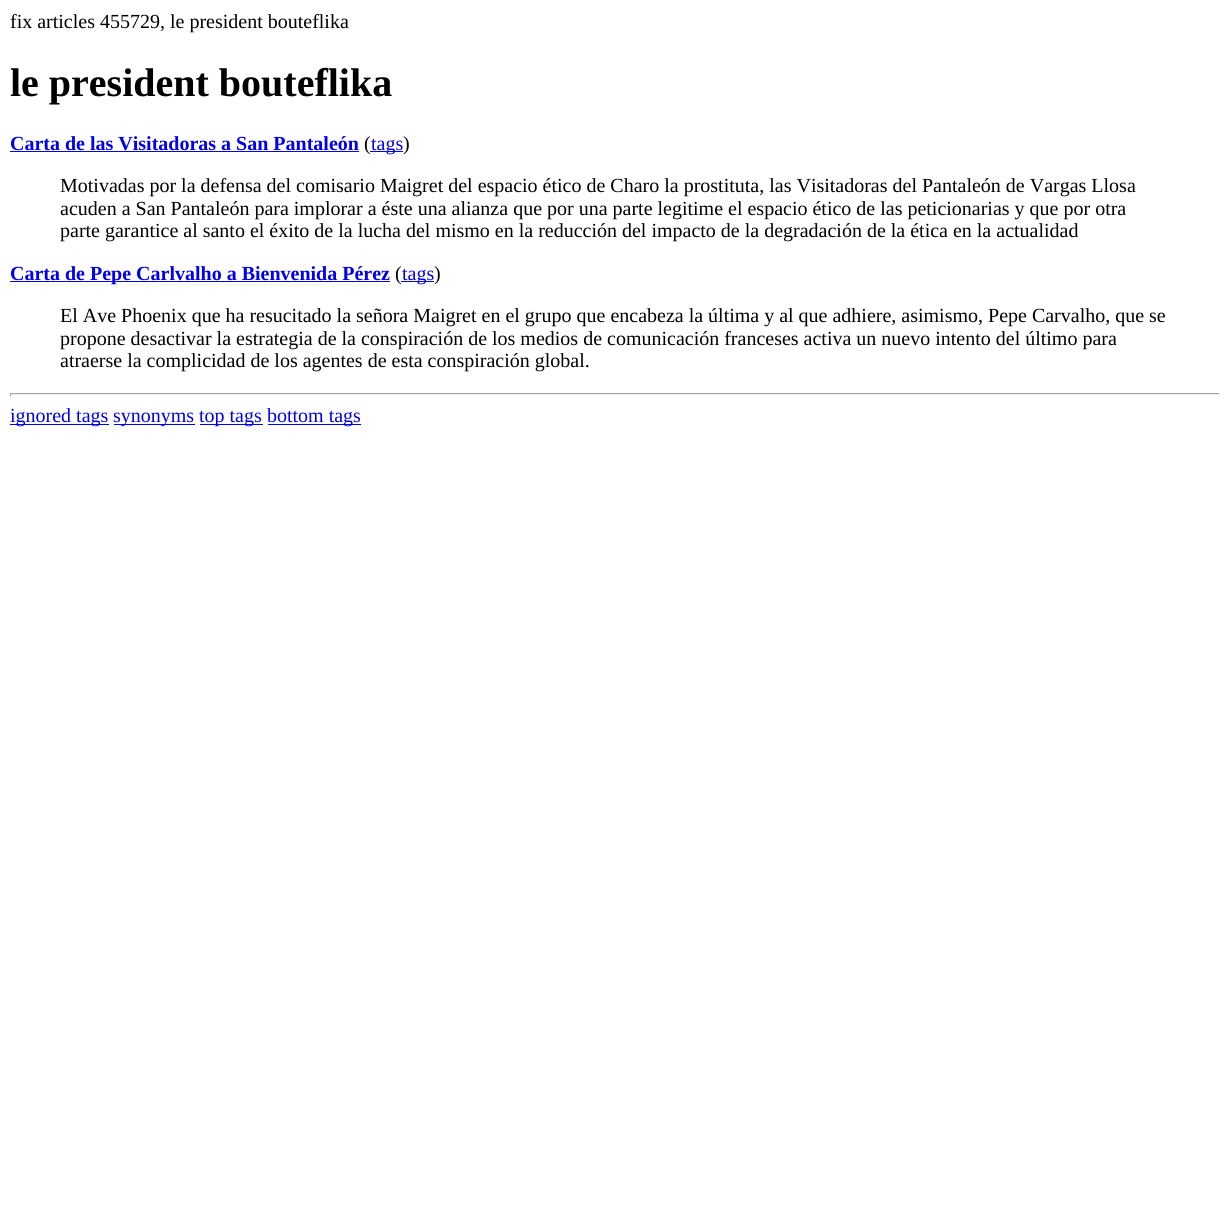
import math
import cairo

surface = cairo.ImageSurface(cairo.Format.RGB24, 1230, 1230)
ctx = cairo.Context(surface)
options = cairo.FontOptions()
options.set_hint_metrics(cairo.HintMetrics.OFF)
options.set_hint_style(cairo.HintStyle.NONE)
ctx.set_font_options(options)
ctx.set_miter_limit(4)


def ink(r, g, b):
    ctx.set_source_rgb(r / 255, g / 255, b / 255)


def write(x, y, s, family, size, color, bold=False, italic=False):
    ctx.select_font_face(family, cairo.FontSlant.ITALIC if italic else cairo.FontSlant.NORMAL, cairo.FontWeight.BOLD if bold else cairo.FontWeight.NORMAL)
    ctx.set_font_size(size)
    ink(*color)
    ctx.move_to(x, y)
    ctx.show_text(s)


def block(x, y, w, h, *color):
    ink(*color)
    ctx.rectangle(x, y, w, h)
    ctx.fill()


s1 = dict(family="Liberation Serif", size=20, color=(0, 0, 0))
s2 = dict(family="Liberation Serif", size=40, color=(0, 0, 0), bold=True)
s3 = dict(family="Liberation Serif", size=20, color=(0, 0, 238), bold=True)
s4 = dict(family="Liberation Serif", size=20, color=(0, 0, 238))

ink(255, 255, 255)
ctx.paint()
write(10, 28, "fix articles 455729, le president bouteflika", **s1)
write(10, 96, "le president bouteflika", **s2)
write(10, 150, "Carta de las Visitadoras a San Pantaleón", **s3)
block(10, 151, 349, 1, 0, 0, 238)
write(364, 150, "(", **s1)
block(370, 151, 33, 1, 0, 0, 238)
write(371, 150, "tags", **s4)
write(403, 150, ")", **s1)
write(60, 192, "Motivadas por la defensa del comisario Maigret del espacio ético de Charo la prostituta, las Visitadoras del Pantaleón de Vargas Llosa", **s1)
write(60, 215, "acuden a San Pantaleón para implorar a éste una alianza que por una parte legitime el espacio ético de las peticionarias y que por otra", **s1)
write(60, 237, "parte garantice al santo el éxito de la lucha del mismo en la reducción del impacto de la degradación de la ética en la actualidad", **s1)
block(10, 281, 380, 1, 0, 0, 238)
write(10, 280, "Carta de Pepe Carlvalho a Bienvenida Pérez", **s3)
write(395, 280, "(", **s1)
block(401, 281, 33, 1, 0, 0, 238)
write(402, 280, "tags", **s4)
write(434, 280, ")", **s1)
write(60, 322, "El Ave Phoenix que ha resucitado la señora Maigret en el grupo que encabeza la última y al que adhiere, asimismo, Pepe Carvalho, que se", **s1)
write(60, 345, "propone desactivar la estrategia de la conspiración de los medios de comunicación franceses activa un nuevo intento del último para", **s1)
write(60, 367, "atraerse la complicidad de los agentes de esta conspiración global.", **s1)
block(10, 393, 1210, 1, 159, 159, 159)
block(1219, 393, 1, 3, 238, 238, 238)
block(10, 394, 1210, 1, 238, 238, 238)
block(10, 393, 1, 3, 159, 159, 159)
block(10, 424, 99, 1, 0, 0, 238)
write(10, 422, "ignored tags", **s4)
block(114, 424, 81, 1, 0, 0, 238)
write(113, 422, "synonyms", **s4)
block(200, 424, 63, 1, 0, 0, 238)
write(199, 422, "top tags", **s4)
block(268, 424, 93, 1, 0, 0, 238)
write(267, 422, "bottom tags", **s4)
surface.write_to_png("screenshot.png")
